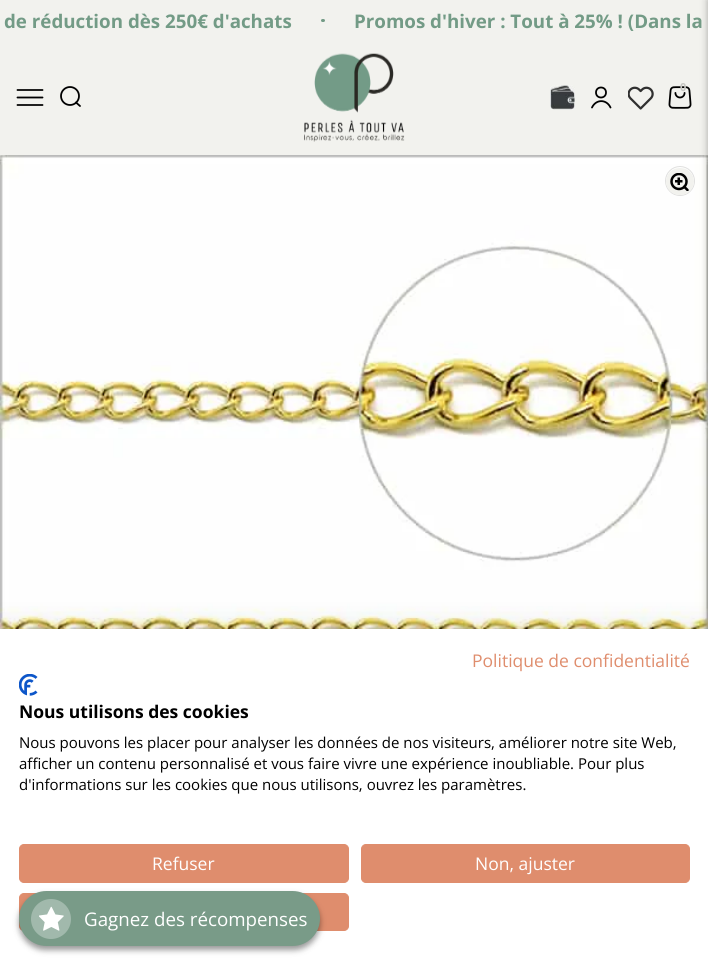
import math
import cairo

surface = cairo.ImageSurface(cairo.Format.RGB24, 708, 965)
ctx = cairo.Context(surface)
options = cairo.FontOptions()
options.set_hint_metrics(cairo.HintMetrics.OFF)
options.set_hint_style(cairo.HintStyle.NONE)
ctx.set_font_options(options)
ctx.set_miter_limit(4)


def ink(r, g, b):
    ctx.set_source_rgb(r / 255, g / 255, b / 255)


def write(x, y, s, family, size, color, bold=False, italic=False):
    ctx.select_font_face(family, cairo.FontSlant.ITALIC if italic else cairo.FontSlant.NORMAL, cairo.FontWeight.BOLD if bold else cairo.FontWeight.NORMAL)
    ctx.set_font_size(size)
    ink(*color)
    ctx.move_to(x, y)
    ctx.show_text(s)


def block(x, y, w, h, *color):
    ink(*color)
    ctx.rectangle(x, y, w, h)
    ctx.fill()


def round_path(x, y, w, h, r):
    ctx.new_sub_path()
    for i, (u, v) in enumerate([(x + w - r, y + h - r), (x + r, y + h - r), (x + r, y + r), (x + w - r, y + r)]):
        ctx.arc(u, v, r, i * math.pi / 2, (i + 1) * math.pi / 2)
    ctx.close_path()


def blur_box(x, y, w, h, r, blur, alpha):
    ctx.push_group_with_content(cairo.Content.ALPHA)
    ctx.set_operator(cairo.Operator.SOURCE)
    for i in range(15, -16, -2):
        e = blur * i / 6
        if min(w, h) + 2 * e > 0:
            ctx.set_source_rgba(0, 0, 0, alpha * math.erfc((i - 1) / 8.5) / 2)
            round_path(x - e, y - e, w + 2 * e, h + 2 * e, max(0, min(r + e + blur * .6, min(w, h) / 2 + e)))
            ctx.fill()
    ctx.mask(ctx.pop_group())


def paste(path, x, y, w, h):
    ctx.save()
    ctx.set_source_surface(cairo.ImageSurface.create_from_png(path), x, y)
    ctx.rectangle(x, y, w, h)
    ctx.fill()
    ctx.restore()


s1 = dict(family="Open Sans", size=18.75, color=(115, 155, 134), bold=True)
s2 = dict(family="Open Sans", size=11, color=(198, 198, 194), bold=True)
s3 = dict(family="Open Sans", size=17.5, color=(223, 141, 109))
s4 = dict(family="Open Sans", size=17.5, color=(0, 0, 0), bold=True)
s5 = dict(family="Open Sans", size=15, color=(0, 0, 0))
s6 = dict(family="Open Sans", size=17.5, color=(255, 255, 255))
s7 = dict(family="Open Sans", size=18.75, color=(255, 255, 255))

ink(242, 242, 238)
ctx.paint()
paste("pic6.png", 0, 155, 708, 474)
ink(0, 0, 0)
blur_box(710, 0, 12, 965, 0, 4.5, 0.5)
write(4, 28, "de réduction dès 250€ d'achats", **s1)
round_path(321, 19, 4, 3, 1.5)
ctx.fill()
write(354, 28, "Promos d'hiver : Tout à 25% ! (Dans la", **s1)
paste("pic1.png", 16, 89, 28, 17)
ctx.arc(70, 96, 9, 0, 2 * math.pi)
ink(0, 0, 0)
ctx.set_line_width(1.8)
ctx.stroke()
ctx.new_path()
ctx.move_to(76, 102.5)
ctx.line_to(80, 106)
ctx.set_line_cap(cairo.LineCap.ROUND)
ctx.set_line_join(cairo.LineJoin.ROUND)
ctx.stroke()
paste("pic2.png", 304, 53, 101, 89)
paste("pic3.png", 550, 85, 25, 25)
ctx.arc(601, 92.5, 5, 0, 2 * math.pi)
ctx.set_line_cap(cairo.LineCap.BUTT)
ctx.set_line_join(cairo.LineJoin.MITER)
ctx.stroke()
ctx.new_path()
ctx.move_to(592, 107.5)
ctx.curve_to(596, 99, 606.5, 99, 610.5, 107.5)
ctx.set_line_cap(cairo.LineCap.ROUND)
ctx.stroke()
paste("pic4.png", 628, 86, 26, 24)
paste("pic5.png", 668, 86, 24, 23)
write(680, 91, "0", **s2)
ctx.new_path()
ctx.arc(680, 181, 14.5, 0, 2 * math.pi)
ink(224, 224, 223)
ctx.set_line_width(1)
ctx.set_line_cap(cairo.LineCap.BUTT)
ctx.stroke()
ink(242, 242, 238)
round_path(666, 168, 28, 27, 13.5)
ctx.fill()
paste("pic7.png", 670, 173, 19, 18)
ink(0, 0, 0)
blur_box(0, 629, 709, 336, 0, 15, 0.1)
block(0, 629, 708, 336, 255, 255, 255)
write(472, 667, "Politique de confidentialité", **s3)
paste("pic8.png", 19, 674, 19, 22)
write(19, 718, "Nous utilisons des cookies", **s4)
write(19, 748, "Nous pouvons les placer pour analyser les données de nos visiteurs, améliorer notre site Web,", **s5)
write(19, 769, "afficher un contenu personnalisé et vous faire vivre une expérience inoubliable. Pour plus", **s5)
write(19, 790, "d'informations sur les cookies que nous utilisons, ouvrez les paramètres.", **s5)
ink(223, 141, 109)
round_path(19.5, 844.5, 329, 38, 4.5)
ctx.fill_preserve()
ctx.stroke()
write(152, 870, "Refuser", **s6)
ink(223, 141, 109)
round_path(361.5, 844.5, 328, 38, 4.5)
ctx.fill_preserve()
ctx.stroke()
write(475, 870, "Non, ajuster", **s6)
ink(223, 141, 109)
round_path(19.5, 893.5, 329, 37, 4.5)
ctx.fill_preserve()
ctx.stroke()
ink(0, 0, 0)
blur_box(19, 895, 301, 55, 27.5, 3, 0.4)
ink(121, 155, 136)
round_path(19, 891, 301, 55, 27.5)
ctx.fill()
ink(161, 185, 172)
ctx.arc(51, 919, 20, 0, 2 * math.pi)
ctx.fill()
paste("pic9.png", 39, 906, 25, 25)
write(84, 926, "Gagnez des récompenses", **s7)
surface.write_to_png("screenshot.png")
